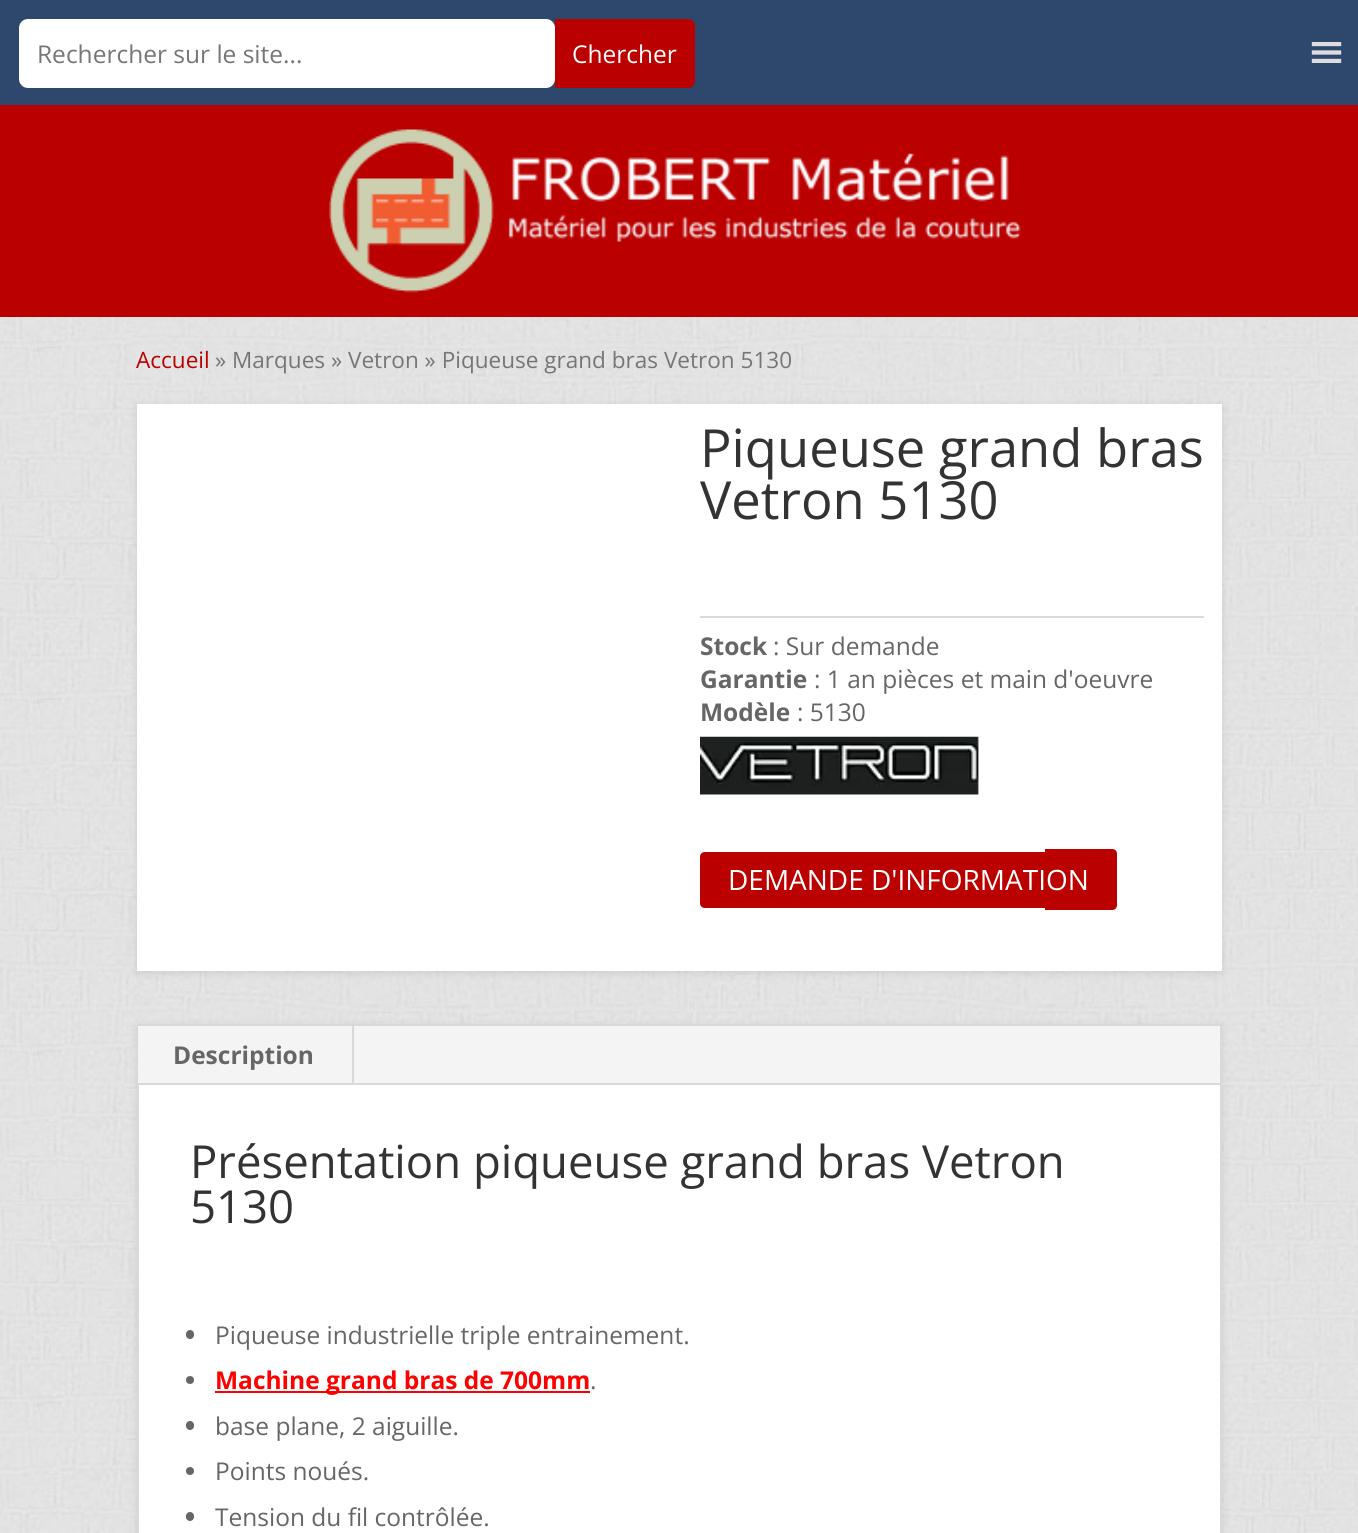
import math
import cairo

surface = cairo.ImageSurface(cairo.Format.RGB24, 1358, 1533)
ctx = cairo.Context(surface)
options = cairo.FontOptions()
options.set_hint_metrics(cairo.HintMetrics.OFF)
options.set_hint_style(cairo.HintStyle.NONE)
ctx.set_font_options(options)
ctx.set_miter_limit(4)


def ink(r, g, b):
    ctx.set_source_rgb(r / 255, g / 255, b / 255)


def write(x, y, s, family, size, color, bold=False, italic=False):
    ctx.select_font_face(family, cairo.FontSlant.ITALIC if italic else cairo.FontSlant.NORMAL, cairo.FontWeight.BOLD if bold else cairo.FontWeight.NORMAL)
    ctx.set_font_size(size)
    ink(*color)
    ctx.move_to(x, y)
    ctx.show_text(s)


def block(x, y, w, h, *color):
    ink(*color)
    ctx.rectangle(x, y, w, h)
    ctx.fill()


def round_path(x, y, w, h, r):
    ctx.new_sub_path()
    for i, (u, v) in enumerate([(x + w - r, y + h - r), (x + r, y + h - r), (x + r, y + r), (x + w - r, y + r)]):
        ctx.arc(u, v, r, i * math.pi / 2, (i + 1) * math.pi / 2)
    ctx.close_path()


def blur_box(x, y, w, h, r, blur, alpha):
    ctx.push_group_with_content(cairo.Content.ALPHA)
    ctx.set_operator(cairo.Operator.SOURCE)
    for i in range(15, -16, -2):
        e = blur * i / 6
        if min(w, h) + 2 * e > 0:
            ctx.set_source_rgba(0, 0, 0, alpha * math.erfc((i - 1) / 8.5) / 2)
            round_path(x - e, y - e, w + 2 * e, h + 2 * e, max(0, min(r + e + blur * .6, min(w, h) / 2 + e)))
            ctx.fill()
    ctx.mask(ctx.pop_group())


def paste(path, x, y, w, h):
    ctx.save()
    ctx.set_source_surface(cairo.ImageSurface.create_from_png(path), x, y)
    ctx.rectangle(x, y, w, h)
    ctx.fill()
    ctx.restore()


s1 = dict(family="Open Sans", size=24.5, color=(118, 118, 118))
s2 = dict(family="Open Sans", size=24.5, color=(255, 255, 255))
s3 = dict(family="Open Sans", size=22.55, color=(187, 0, 0))
s4 = dict(family="Open Sans", size=22.55, color=(118, 118, 118))
s5 = dict(family="Open Sans", size=52.5, color=(51, 51, 51))
s6 = dict(family="Open Sans", size=24.5, color=(102, 102, 102), bold=True)
s7 = dict(family="Open Sans", size=24.5, color=(102, 102, 102))
s8 = dict(family="Open Sans", size=28, color=(255, 255, 255))
s9 = dict(family="Open Sans", size=45.5, color=(51, 51, 51))
s10 = dict(family="Open Sans", size=24.5, color=(255, 0, 0), bold=True)

ink(255, 255, 255)
ctx.paint()
paste("pic1.png", 0, 317, 1358, 1216)
block(0, 0, 1358, 105, 45, 71, 109)
paste("pic2.png", 1311, 42, 31, 21)
ink(255, 255, 255)
round_path(19, 19, 536, 69, 9)
ctx.fill()
write(37, 63, "Rechercher sur le site...", **s1)
ink(187, 0, 0)
ctx.new_path()
ctx.move_to(555, 19)
ctx.line_to(688, 19)
ctx.curve_to(692, 19, 695, 22, 695, 26)
ctx.line_to(695, 81)
ctx.curve_to(695, 85, 692, 88, 688, 88)
ctx.line_to(555, 88)
ctx.close_path()
ctx.fill()
write(572, 63, "Chercher", **s2)
block(0, 105, 1358, 212, 187, 0, 0)
paste("pic3.png", 329, 129, 692, 164)
write(136, 368, "Accueil", **s3)
write(215, 368, "» Marques » Vetron » Piqueuse grand bras Vetron 5130", **s4)
ink(0, 0, 0)
blur_box(137, 406, 1085, 567, 0, 4.5, 0.1)
block(137, 404, 1085, 567, 255, 255, 255)
write(700, 467, "Piqueuse grand bras", **s5)
write(700, 519, "Vetron 5130", **s5)
block(700, 616, 504, 2, 218, 218, 218)
write(700, 655, "Stock", **s6)
write(773, 655, ": Sur demande", **s7)
write(700, 688, "Garantie", **s6)
write(814, 688, ": 1 an pièces et main d'oeuvre", **s7)
write(700, 721, "Modèle", **s6)
write(797, 721, ": 5130", **s7)
paste("pic4.png", 700, 736, 279, 59)
ink(187, 0, 0)
ctx.new_path()
ctx.move_to(705, 852)
ctx.line_to(1089, 852)
ctx.line_to(1089, 908)
ctx.line_to(705, 908)
ctx.curve_to(702, 908, 700, 906, 700, 903)
ctx.line_to(700, 857)
ctx.curve_to(700, 854, 702, 852, 705, 852)
ctx.close_path()
ctx.fill()
ctx.new_path()
ctx.move_to(1045, 849)
ctx.line_to(1112, 849)
ctx.curve_to(1115, 849, 1117, 851, 1117, 854)
ctx.line_to(1117, 905)
ctx.curve_to(1117, 908, 1115, 910, 1112, 910)
ctx.line_to(1045, 910)
ctx.close_path()
ctx.fill()
write(728, 890, "DEMANDE D'INFORMATION", **s8)
ink(0, 0, 0)
blur_box(137, 1026, 1085, 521, 0, 4.5, 0.1)
block(139, 1085, 1081, 448, 255, 255, 255)
ctx.rectangle(138, 1025, 1083, 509)
ink(217, 217, 217)
ctx.stroke()
block(138, 1026, 1082, 57, 244, 244, 244)
block(352, 1026, 2, 59, 217, 217, 217)
write(173, 1064, "Description", **s6)
block(138, 1083, 1082, 2, 217, 217, 217)
write(190, 1178, "Présentation piqueuse grand bras Vetron", **s9)
write(190, 1223, "5130", **s9)
ink(102, 102, 102)
round_path(186, 1330, 8, 9, 4)
ctx.fill()
write(215, 1344, "Piqueuse industrielle triple entrainement.", **s7)
ctx.new_path()
ctx.arc(190, 1380, 4, 0, 2 * math.pi)
ctx.fill()
block(215, 1391, 375, 2, 255, 0, 0)
write(215, 1389, "Machine grand bras de 700mm", **s10)
write(590, 1389, ".", **s7)
round_path(186, 1421, 8, 9, 4)
ctx.fill()
write(215, 1435, "base plane, 2 aiguille.", **s7)
ctx.new_path()
ctx.arc(190, 1471, 4, 0, 2 * math.pi)
ctx.fill()
write(215, 1480, "Points noués.", **s7)
round_path(186, 1512, 8, 9, 4)
ctx.fill()
write(215, 1526, "Tension du fil contrôlée.", **s7)
surface.write_to_png("screenshot.png")
